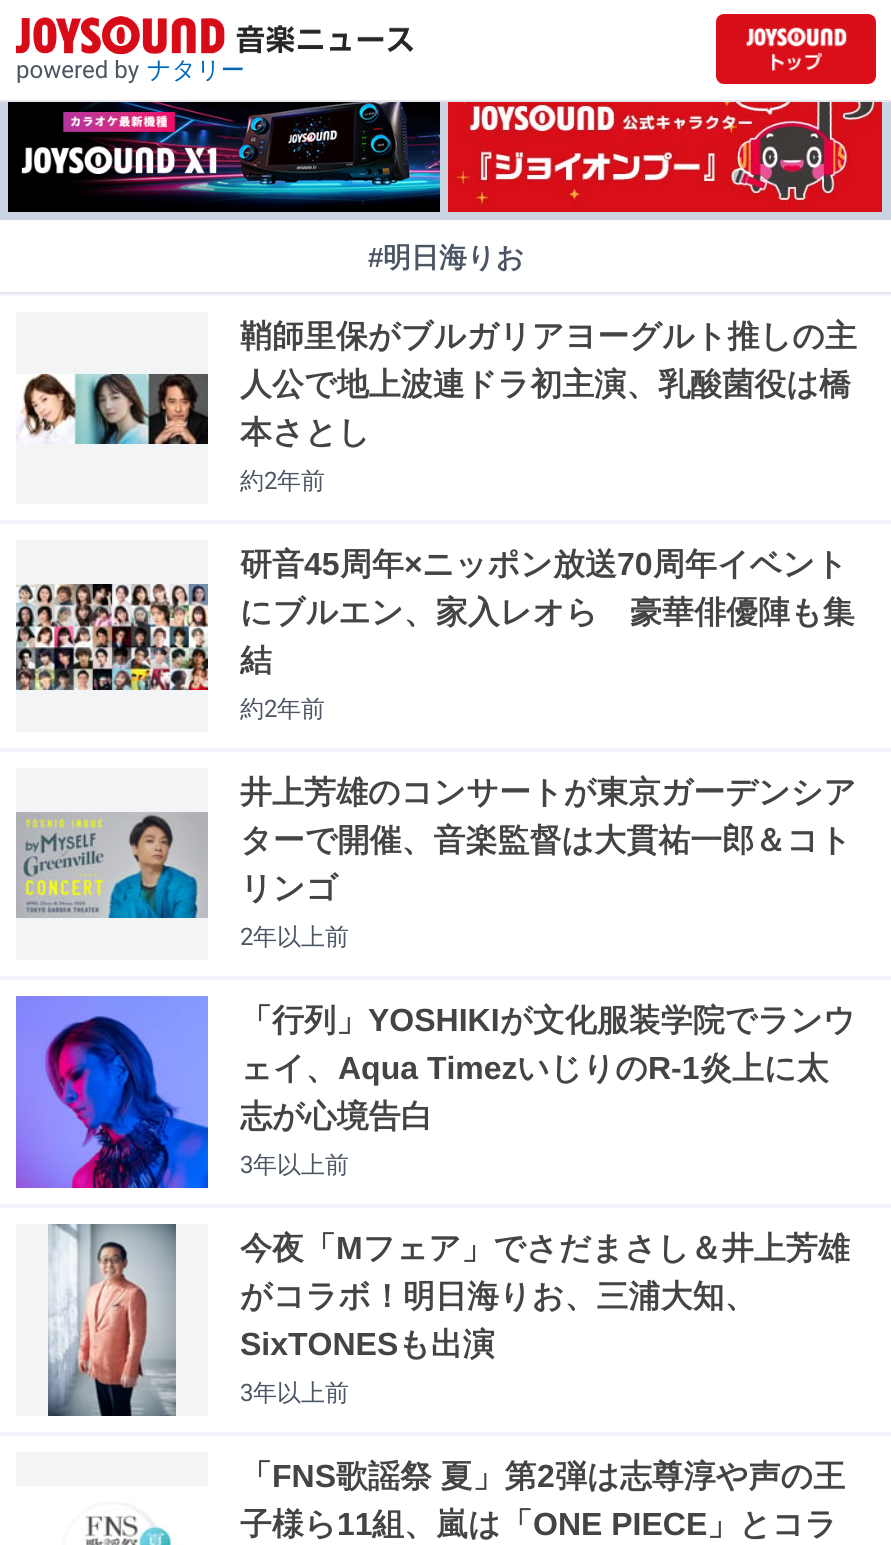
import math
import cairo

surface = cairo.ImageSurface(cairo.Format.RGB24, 891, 1545)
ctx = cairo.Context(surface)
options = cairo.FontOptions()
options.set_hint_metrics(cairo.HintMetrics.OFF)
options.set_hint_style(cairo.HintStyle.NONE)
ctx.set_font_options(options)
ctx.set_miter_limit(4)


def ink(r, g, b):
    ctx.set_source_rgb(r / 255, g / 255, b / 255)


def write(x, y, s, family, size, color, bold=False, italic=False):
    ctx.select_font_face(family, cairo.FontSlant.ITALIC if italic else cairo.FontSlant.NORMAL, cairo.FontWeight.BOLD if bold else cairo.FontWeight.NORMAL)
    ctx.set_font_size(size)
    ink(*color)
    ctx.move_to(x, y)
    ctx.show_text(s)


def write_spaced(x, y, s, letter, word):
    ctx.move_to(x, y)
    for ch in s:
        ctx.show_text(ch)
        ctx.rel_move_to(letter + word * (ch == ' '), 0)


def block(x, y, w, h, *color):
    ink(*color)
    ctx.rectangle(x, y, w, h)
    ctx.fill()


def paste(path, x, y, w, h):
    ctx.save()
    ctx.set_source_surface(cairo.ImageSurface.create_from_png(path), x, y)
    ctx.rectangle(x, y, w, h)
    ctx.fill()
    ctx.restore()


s1 = dict(family="Roboto", size=24, color=(75, 85, 99))
s2 = dict(family="WenQuanYi Zen Hei Medium", size=24, color=(3, 106, 185))
s3 = dict(family="Liberation Sans", size=28, color=(75, 85, 99), bold=True)
s4 = dict(family="WenQuanYi Zen Hei", size=28, color=(75, 85, 99), bold=True)
s5 = dict(family="WenQuanYi Zen Hei", size=32, color=(68, 68, 68), bold=True)
s6 = dict(family="WenQuanYi Zen Hei Medium", size=24, color=(75, 85, 99))
s7 = dict(family="Liberation Sans", size=32, color=(68, 68, 68), bold=True)

ink(203, 213, 225)
ctx.paint()
block(0, 0, 891, 100, 255, 255, 255)
block(0, 100, 891, 2, 229, 231, 235)
paste("pic1.png", 16, 16, 398, 38)
write(16, 78, "powered by", **s1)
write(147, 78, "ナタリー", **s2)
paste("pic2.png", 716, 14, 160, 70)
paste("pic3.png", 8, 102, 432, 110)
paste("pic4.png", 448, 102, 434, 110)
block(0, 292, 891, 2, 229, 231, 235)
block(0, 220, 891, 72, 255, 255, 255)
write(368, 267, "#", **s3)
write(383, 267, "明日海りお", **s4)
block(0, 296, 891, 224, 255, 255, 255)
block(0, 294, 891, 2, 241, 245, 249)
block(0, 520, 891, 4, 241, 245, 249)
block(16, 312, 192, 192, 243, 244, 246)
paste("pic5.png", 16, 374, 192, 70)
write(240, 347, "鞘師里保がブルガリアヨーグルト推しの主", **s5)
write(240, 395, "人公で地上波連ドラ初主演、乳酸菌役は橋", **s5)
write(240, 443, "本さとし", **s5)
write(240, 489, "約", **s6)
write(264, 489, "2", **s1)
write(277, 489, "年前", **s6)
block(0, 524, 891, 224, 255, 255, 255)
block(0, 748, 891, 4, 241, 245, 249)
block(16, 540, 192, 192, 243, 244, 246)
paste("pic6.png", 16, 584, 192, 106)
write(240, 575, "研音", **s5)
write(304, 575, "45", **s7)
write(340, 575, "周年", **s5)
write(404, 575, "×", **s7)
write(422, 575, "ニッポン放送", **s5)
write(617, 575, "70", **s7)
write(653, 575, "周年イベント", **s5)
write(240, 623, "にブルエン、家入レオら　豪華俳優陣も集", **s5)
write(240, 671, "結", **s5)
write(240, 717, "約", **s6)
write(264, 717, "2", **s1)
write(277, 717, "年前", **s6)
block(0, 752, 891, 224, 255, 255, 255)
block(0, 976, 891, 4, 241, 245, 249)
block(16, 768, 192, 192, 243, 244, 246)
paste("pic7.png", 16, 812, 192, 106)
write(240, 803, "井上芳雄のコンサートが東京ガーデンシア", **s5)
write(240, 851, "ターで開催、音楽監督は大貫祐一郎＆コト", **s5)
write(240, 899, "リンゴ", **s5)
write(240, 945, "2", **s1)
write(253, 945, "年以上前", **s6)
block(0, 980, 891, 224, 255, 255, 255)
block(0, 1204, 891, 4, 241, 245, 249)
paste("pic8.png", 16, 996, 192, 192)
write(240, 1031, "「行列」", **s5)
write(368, 1031, "YOSHIKI", **s7)
write(500, 1031, "が文化服装学院でランウ", **s5)
write(240, 1079, "ェイ、", **s5)
write(338, 1079, "Aqua Timez", **s7)
write(517, 1079, "いじりの", **s5)
write(648, 1079, "R-1", **s7)
write(700, 1079, "炎上に太", **s5)
write(240, 1127, "志が心境告白", **s5)
write(240, 1173, "3", **s1)
write(253, 1173, "年以上前", **s6)
block(0, 1208, 891, 224, 255, 255, 255)
block(0, 1432, 891, 4, 241, 245, 249)
block(16, 1224, 192, 192, 243, 244, 246)
paste("pic9.png", 48, 1224, 128, 192)
write(240, 1259, "今夜「", **s5)
write(336, 1259, "M", **s7)
write(363, 1259, "フェア」でさだまさし＆井上芳雄", **s5)
write(240, 1307, "がコラボ！明日海りお、三浦大知、", **s5)
write(240, 1355, "SixTONES", **s7)
write(398, 1355, "も出演", **s5)
write(240, 1401, "3", **s1)
write(253, 1401, "年以上前", **s6)
block(0, 1436, 891, 109, 255, 255, 255)
block(16, 1452, 192, 34, 243, 244, 246)
paste("pic10.png", 16, 1486, 192, 59)
write(240, 1487, "「", **s5)
write(272, 1487, "FNS", **s7)
ctx.select_font_face("WenQuanYi Zen Hei", cairo.FontSlant.NORMAL, cairo.FontWeight.BOLD)
write_spaced(336, 1487, "歌謡祭 夏」第", 0, -1)
write(537, 1487, "2", **s7)
write(555, 1487, "弾は志尊淳や声の王", **s5)
write(240, 1535, "子様ら", **s5)
write(337, 1535, "11", **s7)
write(372, 1535, "組、嵐は「", **s5)
write(533, 1535, "ONE PIECE", **s7)
write(707, 1535, "」とコラ", **s5)
surface.write_to_png("screenshot.png")
